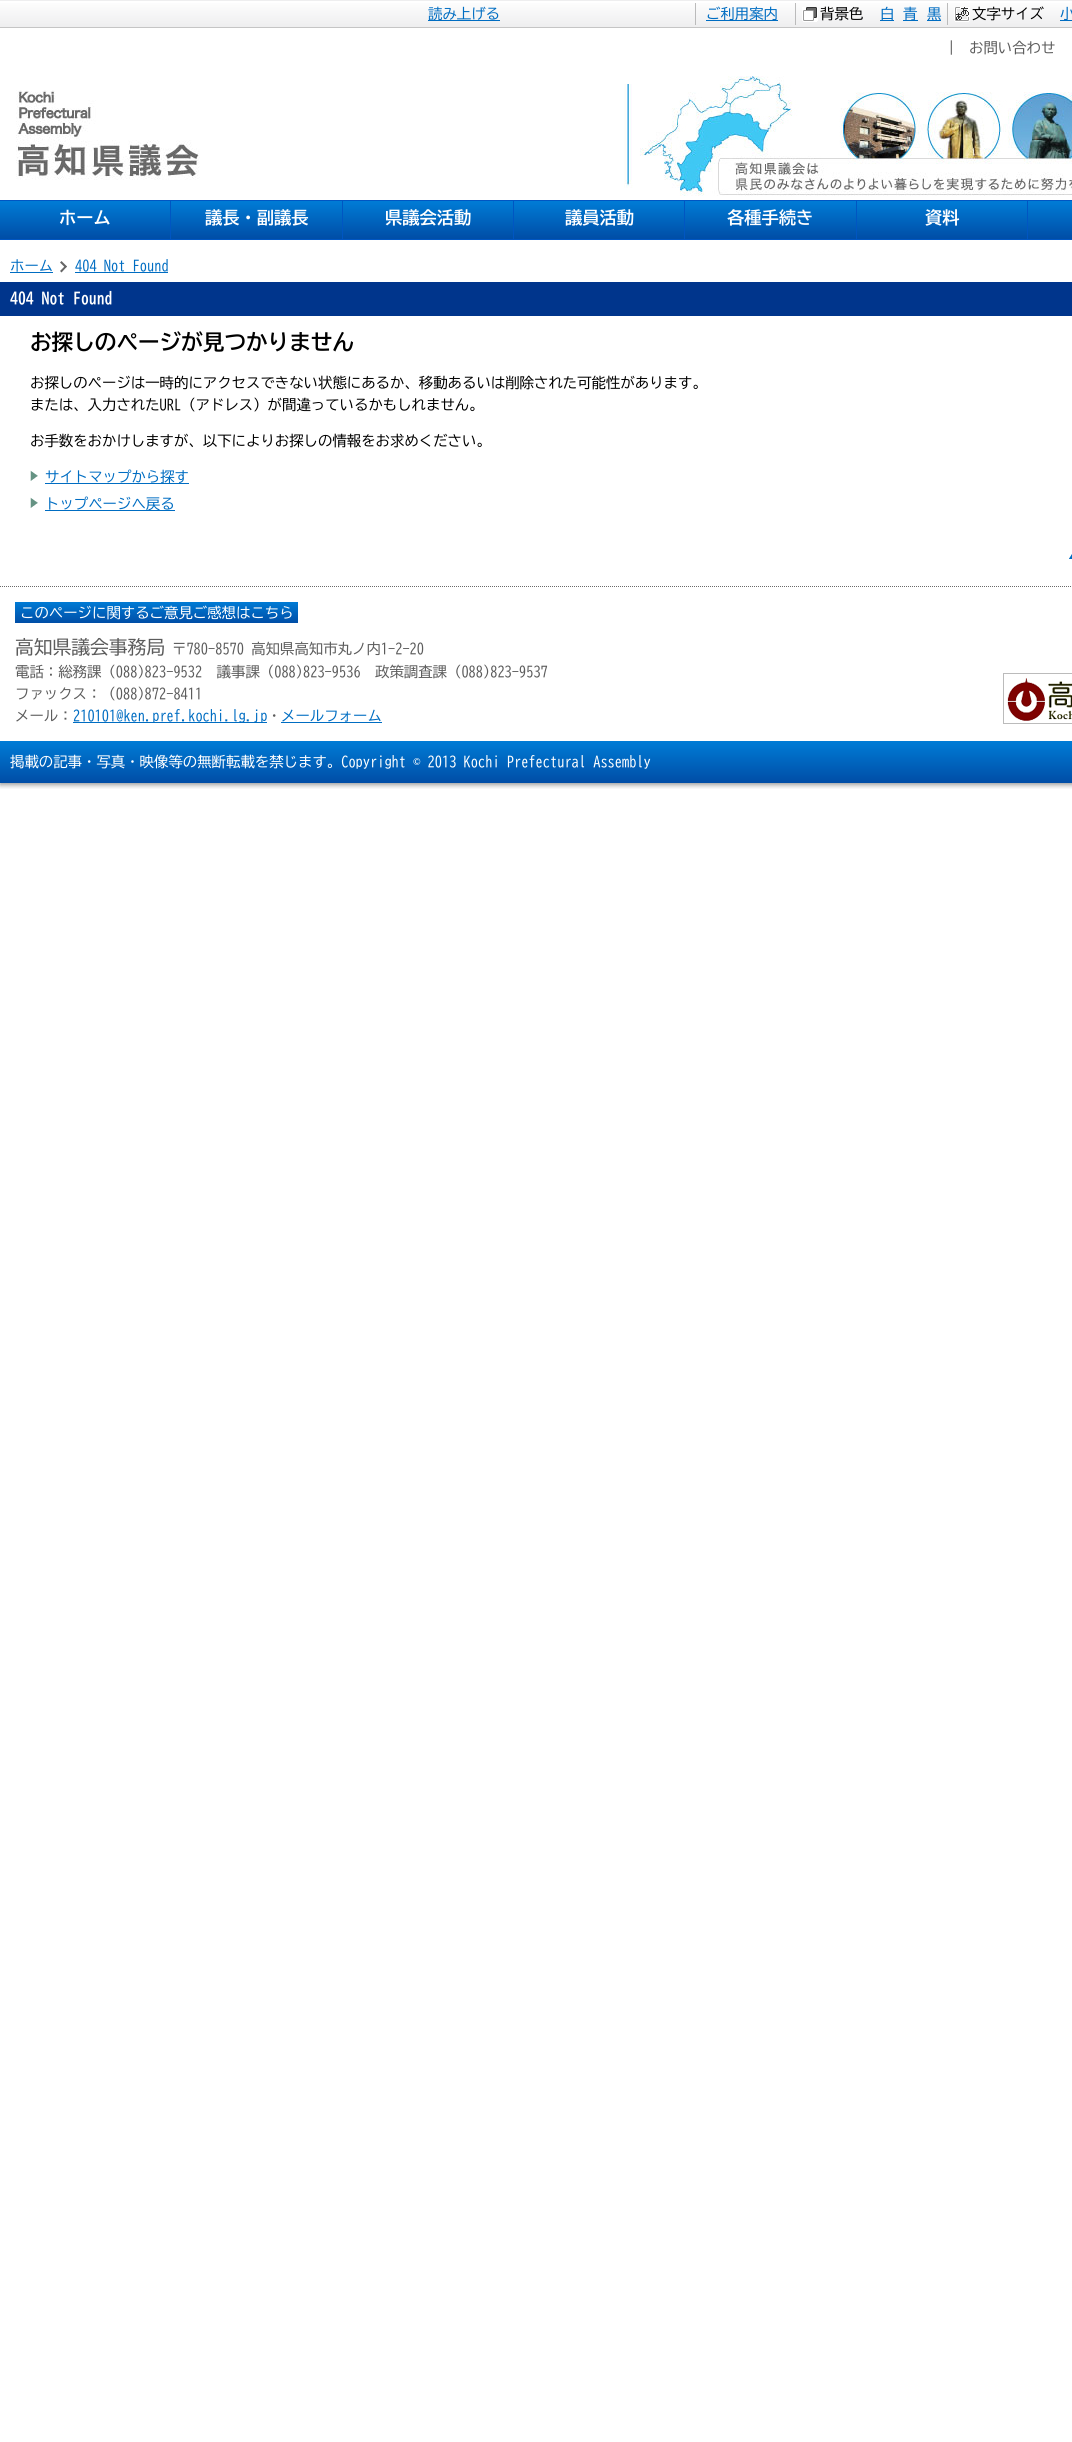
import math
import cairo

surface = cairo.ImageSurface(cairo.Format.RGB24, 1072, 2442)
ctx = cairo.Context(surface)
options = cairo.FontOptions()
options.set_hint_metrics(cairo.HintMetrics.OFF)
options.set_hint_style(cairo.HintStyle.NONE)
ctx.set_font_options(options)
ctx.set_miter_limit(4)


def ink(r, g, b):
    ctx.set_source_rgb(r / 255, g / 255, b / 255)


def write(x, y, s, family, size, color, bold=False, italic=False):
    ctx.select_font_face(family, cairo.FontSlant.ITALIC if italic else cairo.FontSlant.NORMAL, cairo.FontWeight.BOLD if bold else cairo.FontWeight.NORMAL)
    ctx.set_font_size(size)
    ink(*color)
    ctx.move_to(x, y)
    ctx.show_text(s)


def block(x, y, w, h, *color):
    ink(*color)
    ctx.rectangle(x, y, w, h)
    ctx.fill()


def round_path(x, y, w, h, r):
    ctx.new_sub_path()
    for i, (u, v) in enumerate([(x + w - r, y + h - r), (x + r, y + h - r), (x + r, y + r), (x + w - r, y + r)]):
        ctx.arc(u, v, r, i * math.pi / 2, (i + 1) * math.pi / 2)
    ctx.close_path()


def blur_box(x, y, w, h, r, blur, alpha):
    ctx.push_group_with_content(cairo.Content.ALPHA)
    ctx.set_operator(cairo.Operator.SOURCE)
    for i in range(15, -16, -2):
        e = blur * i / 6
        if min(w, h) + 2 * e > 0:
            ctx.set_source_rgba(0, 0, 0, alpha * math.erfc((i - 1) / 8.5) / 2)
            round_path(x - e, y - e, w + 2 * e, h + 2 * e, max(0, min(r + e + blur * .6, min(w, h) / 2 + e)))
            ctx.fill()
    ctx.mask(ctx.pop_group())


def paste(path, x, y, w, h):
    ctx.save()
    ctx.set_source_surface(cairo.ImageSurface.create_from_png(path), x, y)
    ctx.rectangle(x, y, w, h)
    ctx.fill()
    ctx.restore()


s1 = dict(family="BIZ UDGothic", size=14.4, color=(0, 109, 194))
s2 = dict(family="BIZ UDGothic", size=14.4, color=(0, 0, 0))
s3 = dict(family="BIZ UDGothic", size=14.4, color=(92, 92, 92))
s4 = dict(family="BIZ UDGothic", size=17.25, color=(255, 255, 255), bold=True)
s5 = dict(family="BIZ UDGothic", size=15.75, color=(255, 255, 255), bold=True)
s6 = dict(family="BIZ UDGothic", size=21.6, color=(0, 0, 0), bold=True)
s7 = dict(family="BIZ UDGothic", size=14.4, color=(255, 255, 255))
s8 = dict(family="BIZ UDGothic", size=18.75, color=(92, 92, 92))

ink(255, 255, 255)
ctx.paint()
ctx.save()
ctx.rectangle(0, 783, 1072, 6)
ctx.clip()
ink(0, 0, 0)
blur_box(0, 2, 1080, 783, 0, 2.5, 0.4)
ctx.restore()
gradient = cairo.LinearGradient(600, -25, 600, 1)
gradient.add_color_stop_rgba(0, 0.996, 0.996, 0.996, 1)
gradient.add_color_stop_rgba(1, 0.933, 0.933, 0.937, 1)
ctx.set_source(gradient)
ctx.rectangle(0, 0, 1072, 1)
ctx.fill()
gradient = cairo.LinearGradient(600, 1, 600, 27)
gradient.add_color_stop_rgba(0, 0.996, 0.996, 0.996, 1)
gradient.add_color_stop_rgba(1, 0.933, 0.933, 0.937, 1)
ctx.set_source(gradient)
ctx.rectangle(0, 3, 1072, 24)
ctx.fill()
block(0, 27, 1072, 1, 197, 197, 197)
block(428, 20, 72, 1, 0, 109, 194)
write(428, 19, "読み上げる", **s1)
block(695, 3, 1, 22, 187, 187, 187)
block(706, 20, 72, 1, 0, 109, 194)
write(706, 19, "ご利用案内", **s1)
paste("pic1.png", 802, 7, 16, 15)
block(795, 3, 1, 22, 187, 187, 187)
write(820, 19, "背景色", **s2)
block(880, 20, 14, 1, 0, 109, 194)
write(880, 19, "白", **s1)
block(903, 20, 15, 1, 0, 109, 194)
write(903, 19, "青", **s1)
block(927, 20, 14, 1, 0, 109, 194)
write(927, 19, "黒", **s1)
paste("pic2.png", 954, 7, 16, 15)
block(947, 3, 1, 22, 187, 187, 187)
write(972, 19, "文字サイズ", **s2)
block(1060, 20, 12, 1, 0, 109, 194)
write(1060, 19, "小", **s1)
write(944, 53, "｜", **s2)
write(969, 53, "お問い合わせ", **s3)
paste("pic3.png", 16, 90, 184, 90)
paste("pic4.png", 624, 76, 448, 120)
gradient = cairo.LinearGradient(85, 201, 85, 239)
gradient.add_color_stop_rgba(0, 0, 0.486, 0.839, 1)
gradient.add_color_stop_rgba(1, 0, 0.302, 0.651, 1)
ctx.set_source(gradient)
ctx.rectangle(0, 201, 170, 38)
ctx.fill()
block(0, 200, 1072, 1, 0, 86, 194)
block(170, 200, 1, 40, 0, 86, 194)
block(0, 239, 171, 1, 0, 86, 194)
write(59, 224, "ホーム", **s4)
gradient = cairo.LinearGradient(257, 201, 257, 239)
gradient.add_color_stop_rgba(0, 0, 0.486, 0.839, 1)
gradient.add_color_stop_rgba(1, 0, 0.302, 0.651, 1)
ctx.set_source(gradient)
ctx.rectangle(171, 201, 171, 38)
ctx.fill()
block(342, 200, 1, 40, 0, 86, 194)
block(171, 239, 172, 1, 0, 86, 194)
write(205, 224, "議長・副議長", **s4)
gradient = cairo.LinearGradient(428, 201, 428, 239)
gradient.add_color_stop_rgba(0, 0, 0.486, 0.839, 1)
gradient.add_color_stop_rgba(1, 0, 0.302, 0.651, 1)
ctx.set_source(gradient)
ctx.rectangle(343, 201, 170, 38)
ctx.fill()
block(513, 200, 1, 40, 0, 86, 194)
block(343, 239, 171, 1, 0, 86, 194)
write(385, 224, "県議会活動", **s4)
gradient = cairo.LinearGradient(599, 201, 599, 239)
gradient.add_color_stop_rgba(0, 0, 0.486, 0.839, 1)
gradient.add_color_stop_rgba(1, 0, 0.302, 0.651, 1)
ctx.set_source(gradient)
ctx.rectangle(514, 201, 170, 38)
ctx.fill()
block(684, 200, 1, 40, 0, 86, 194)
block(514, 239, 171, 1, 0, 86, 194)
write(565, 224, "議員活動", **s4)
gradient = cairo.LinearGradient(771, 201, 771, 239)
gradient.add_color_stop_rgba(0, 0, 0.486, 0.839, 1)
gradient.add_color_stop_rgba(1, 0, 0.302, 0.651, 1)
ctx.set_source(gradient)
ctx.rectangle(685, 201, 171, 38)
ctx.fill()
block(856, 200, 1, 40, 0, 86, 194)
block(685, 239, 172, 1, 0, 86, 194)
write(727, 224, "各種手続き", **s4)
gradient = cairo.LinearGradient(942, 201, 942, 239)
gradient.add_color_stop_rgba(0, 0, 0.486, 0.839, 1)
gradient.add_color_stop_rgba(1, 0, 0.302, 0.651, 1)
ctx.set_source(gradient)
ctx.rectangle(857, 201, 170, 38)
ctx.fill()
block(1027, 200, 1, 40, 0, 86, 194)
block(857, 239, 215, 1, 0, 86, 194)
write(925, 224, "資料", **s4)
gradient = cairo.LinearGradient(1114, 201, 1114, 239)
gradient.add_color_stop_rgba(0, 0, 0.486, 0.839, 1)
gradient.add_color_stop_rgba(1, 0, 0.302, 0.651, 1)
ctx.set_source(gradient)
ctx.rectangle(1028, 201, 44, 38)
ctx.fill()
write(10, 271, "ホーム", **s1)
block(10, 272, 43, 1, 0, 109, 194)
ink(102, 102, 102)
ctx.new_path()
ctx.move_to(60, 262.5)
ctx.line_to(61.5, 261)
ctx.line_to(67, 266.5)
ctx.line_to(65.5, 268)
ctx.close_path()
ctx.fill()
ctx.new_path()
ctx.move_to(60, 271)
ctx.line_to(65.5, 265.5)
ctx.line_to(67, 266.5)
ctx.line_to(61.5, 272.5)
ctx.close_path()
ctx.fill()
write(75, 271, "404 Not Found", **s1)
block(75, 272, 93, 1, 0, 109, 194)
block(0, 282, 1072, 34, 0, 53, 140)
write(10, 304, "404 Not Found", **s5)
write(30, 350, "お探しのページが見つかりません", **s6)
write(30, 388, "お探しのページは一時的にアクセスできない状態にあるか、移動あるいは削除された可能性があります。", **s2)
write(30, 410, "または、入力されたURL（アドレス）が間違っているかもしれません。", **s2)
write(30, 446, "お手数をおかけしますが、以下によりお探しの情報をお求めください。", **s2)
paste("pic5.png", 30, 470, 8, 11)
block(45, 483, 144, 1, 0, 109, 194)
write(45, 482, "サイトマップから探す", **s1)
paste("pic5.png", 30, 497, 8, 11)
block(45, 510, 130, 1, 0, 109, 194)
write(45, 509, "トップページへ戻る", **s1)
paste("pic6.png", 1069, 554, 3, 5)
ctx.new_path()
ctx.move_to(0, 586.5)
ctx.line_to(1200, 586.5)
ink(105, 105, 105)
ctx.set_line_width(1)
ctx.set_dash([1, 1])
ctx.stroke()
gradient = cairo.LinearGradient(157, 602, 157, 623)
gradient.add_color_stop_rgba(0, 0, 0.482, 0.835, 1)
gradient.add_color_stop_rgba(1, 0, 0.306, 0.655, 1)
ctx.set_source(gradient)
ctx.rectangle(15, 602, 283, 21)
ctx.fill()
write(20, 618, "このページに関するご意見ご感想はこちら", **s7)
write(15, 654, "高知県議会事務局", **s8)
write(172, 654, "〒780-8570 高知県高知市丸ノ内1-2-20", **s3)
write(15, 677, "電話：総務課 (088)823-9532　議事課 (088)823-9536　政策調査課 (088)823-9537", **s3)
write(15, 699, "ファックス： (088)872-8411", **s3)
paste("pic7.png", 1003, 673, 69, 51)
write(15, 721, "メール：", **s3)
block(73, 722, 194, 1, 0, 109, 194)
write(73, 721, "210101@ken.pref.kochi.lg.jp", **s1)
write(267, 721, "・", **s3)
write(281, 721, "メールフォーム", **s1)
block(281, 722, 101, 1, 0, 109, 194)
gradient = cairo.LinearGradient(600, 741, 600, 783)
gradient.add_color_stop_rgba(0, 0, 0.486, 0.839, 1)
gradient.add_color_stop_rgba(1, 0, 0.302, 0.651, 1)
ctx.set_source(gradient)
ctx.rectangle(0, 741, 1072, 42)
ctx.fill()
write(10, 767, "掲載の記事・写真・映像等の無断転載を禁じます。Copyright © 2013 Kochi Prefectural Assembly", **s7)
surface.write_to_png("screenshot.png")
